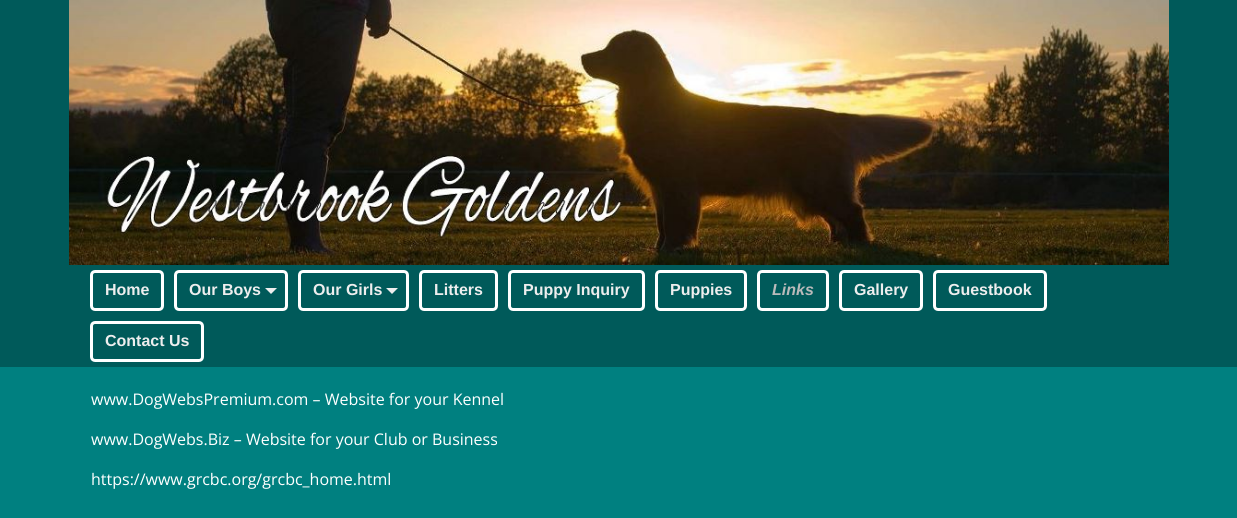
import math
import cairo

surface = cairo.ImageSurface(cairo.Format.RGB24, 1237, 518)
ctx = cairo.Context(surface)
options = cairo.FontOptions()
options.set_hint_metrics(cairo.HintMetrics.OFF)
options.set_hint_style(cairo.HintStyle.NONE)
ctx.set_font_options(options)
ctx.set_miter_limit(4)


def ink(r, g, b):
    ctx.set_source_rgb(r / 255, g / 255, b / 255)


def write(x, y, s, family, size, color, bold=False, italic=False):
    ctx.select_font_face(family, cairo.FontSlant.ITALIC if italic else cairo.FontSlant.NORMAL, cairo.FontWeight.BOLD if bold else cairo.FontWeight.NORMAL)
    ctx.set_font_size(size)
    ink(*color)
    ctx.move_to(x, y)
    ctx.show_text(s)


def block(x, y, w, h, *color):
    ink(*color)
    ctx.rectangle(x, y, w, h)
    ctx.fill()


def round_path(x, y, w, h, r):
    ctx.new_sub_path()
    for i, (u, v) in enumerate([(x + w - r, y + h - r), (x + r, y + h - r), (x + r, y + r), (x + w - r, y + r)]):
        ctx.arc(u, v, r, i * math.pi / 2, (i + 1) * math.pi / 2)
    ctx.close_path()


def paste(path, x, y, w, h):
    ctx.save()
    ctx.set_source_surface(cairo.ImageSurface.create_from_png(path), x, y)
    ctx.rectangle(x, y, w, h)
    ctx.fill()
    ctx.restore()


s1 = dict(family="Liberation Sans", size=16, color=(238, 238, 238), bold=True)
s2 = dict(family="Liberation Sans", size=16, color=(186, 186, 186), bold=True, italic=True)
s3 = dict(family="Open Sans", size=16, color=(255, 255, 255))

ink(0, 128, 128)
ctx.paint()
block(0, 0, 1237, 367, 0, 90, 90)
paste("pic1.png", 69, 0, 1100, 265)
round_path(91.5, 271.5, 71, 38, 3.5)
ink(255, 255, 255)
ctx.set_line_width(3)
ctx.stroke()
write(105, 295, "Home", **s1)
round_path(175.5, 271.5, 111, 38, 3.5)
ink(255, 255, 255)
ctx.stroke()
write(189, 295, "Our Boys", **s1)
ctx.new_path()
ctx.move_to(265, 288)
ctx.line_to(277, 288)
ctx.line_to(271, 294)
ctx.close_path()
ctx.fill()
round_path(299.5, 271.5, 108, 38, 3.5)
ink(255, 255, 255)
ctx.stroke()
write(313, 295, "Our Girls", **s1)
ctx.new_path()
ctx.move_to(386, 288)
ctx.line_to(398, 288)
ctx.line_to(392, 294)
ctx.close_path()
ctx.fill()
round_path(420.5, 271.5, 76, 38, 3.5)
ink(255, 255, 255)
ctx.stroke()
write(434, 295, "Litters", **s1)
round_path(509.5, 271.5, 134, 38, 3.5)
ink(255, 255, 255)
ctx.stroke()
write(523, 295, "Puppy Inquiry", **s1)
round_path(656.5, 271.5, 89, 38, 3.5)
ink(255, 255, 255)
ctx.stroke()
write(670, 295, "Puppies", **s1)
round_path(758.5, 271.5, 69, 38, 3.5)
ink(255, 255, 255)
ctx.stroke()
write(772, 295, "Links", **s2)
round_path(840.5, 271.5, 81, 38, 3.5)
ink(255, 255, 255)
ctx.stroke()
write(854, 295, "Gallery", **s1)
round_path(934.5, 271.5, 111, 38, 3.5)
ink(255, 255, 255)
ctx.stroke()
write(948, 295, "Guestbook", **s1)
round_path(91.5, 322.5, 111, 38, 3.5)
ink(255, 255, 255)
ctx.stroke()
write(105, 346, "Contact Us", **s1)
write(91, 405, "www.DogWebsPremium.com – Website for your Kennel", **s3)
write(91, 445, "www.DogWebs.Biz – Website for your Club or Business", **s3)
write(91, 485, "https://www.grcbc.org/grcbc_home.html", **s3)
surface.write_to_png("screenshot.png")
